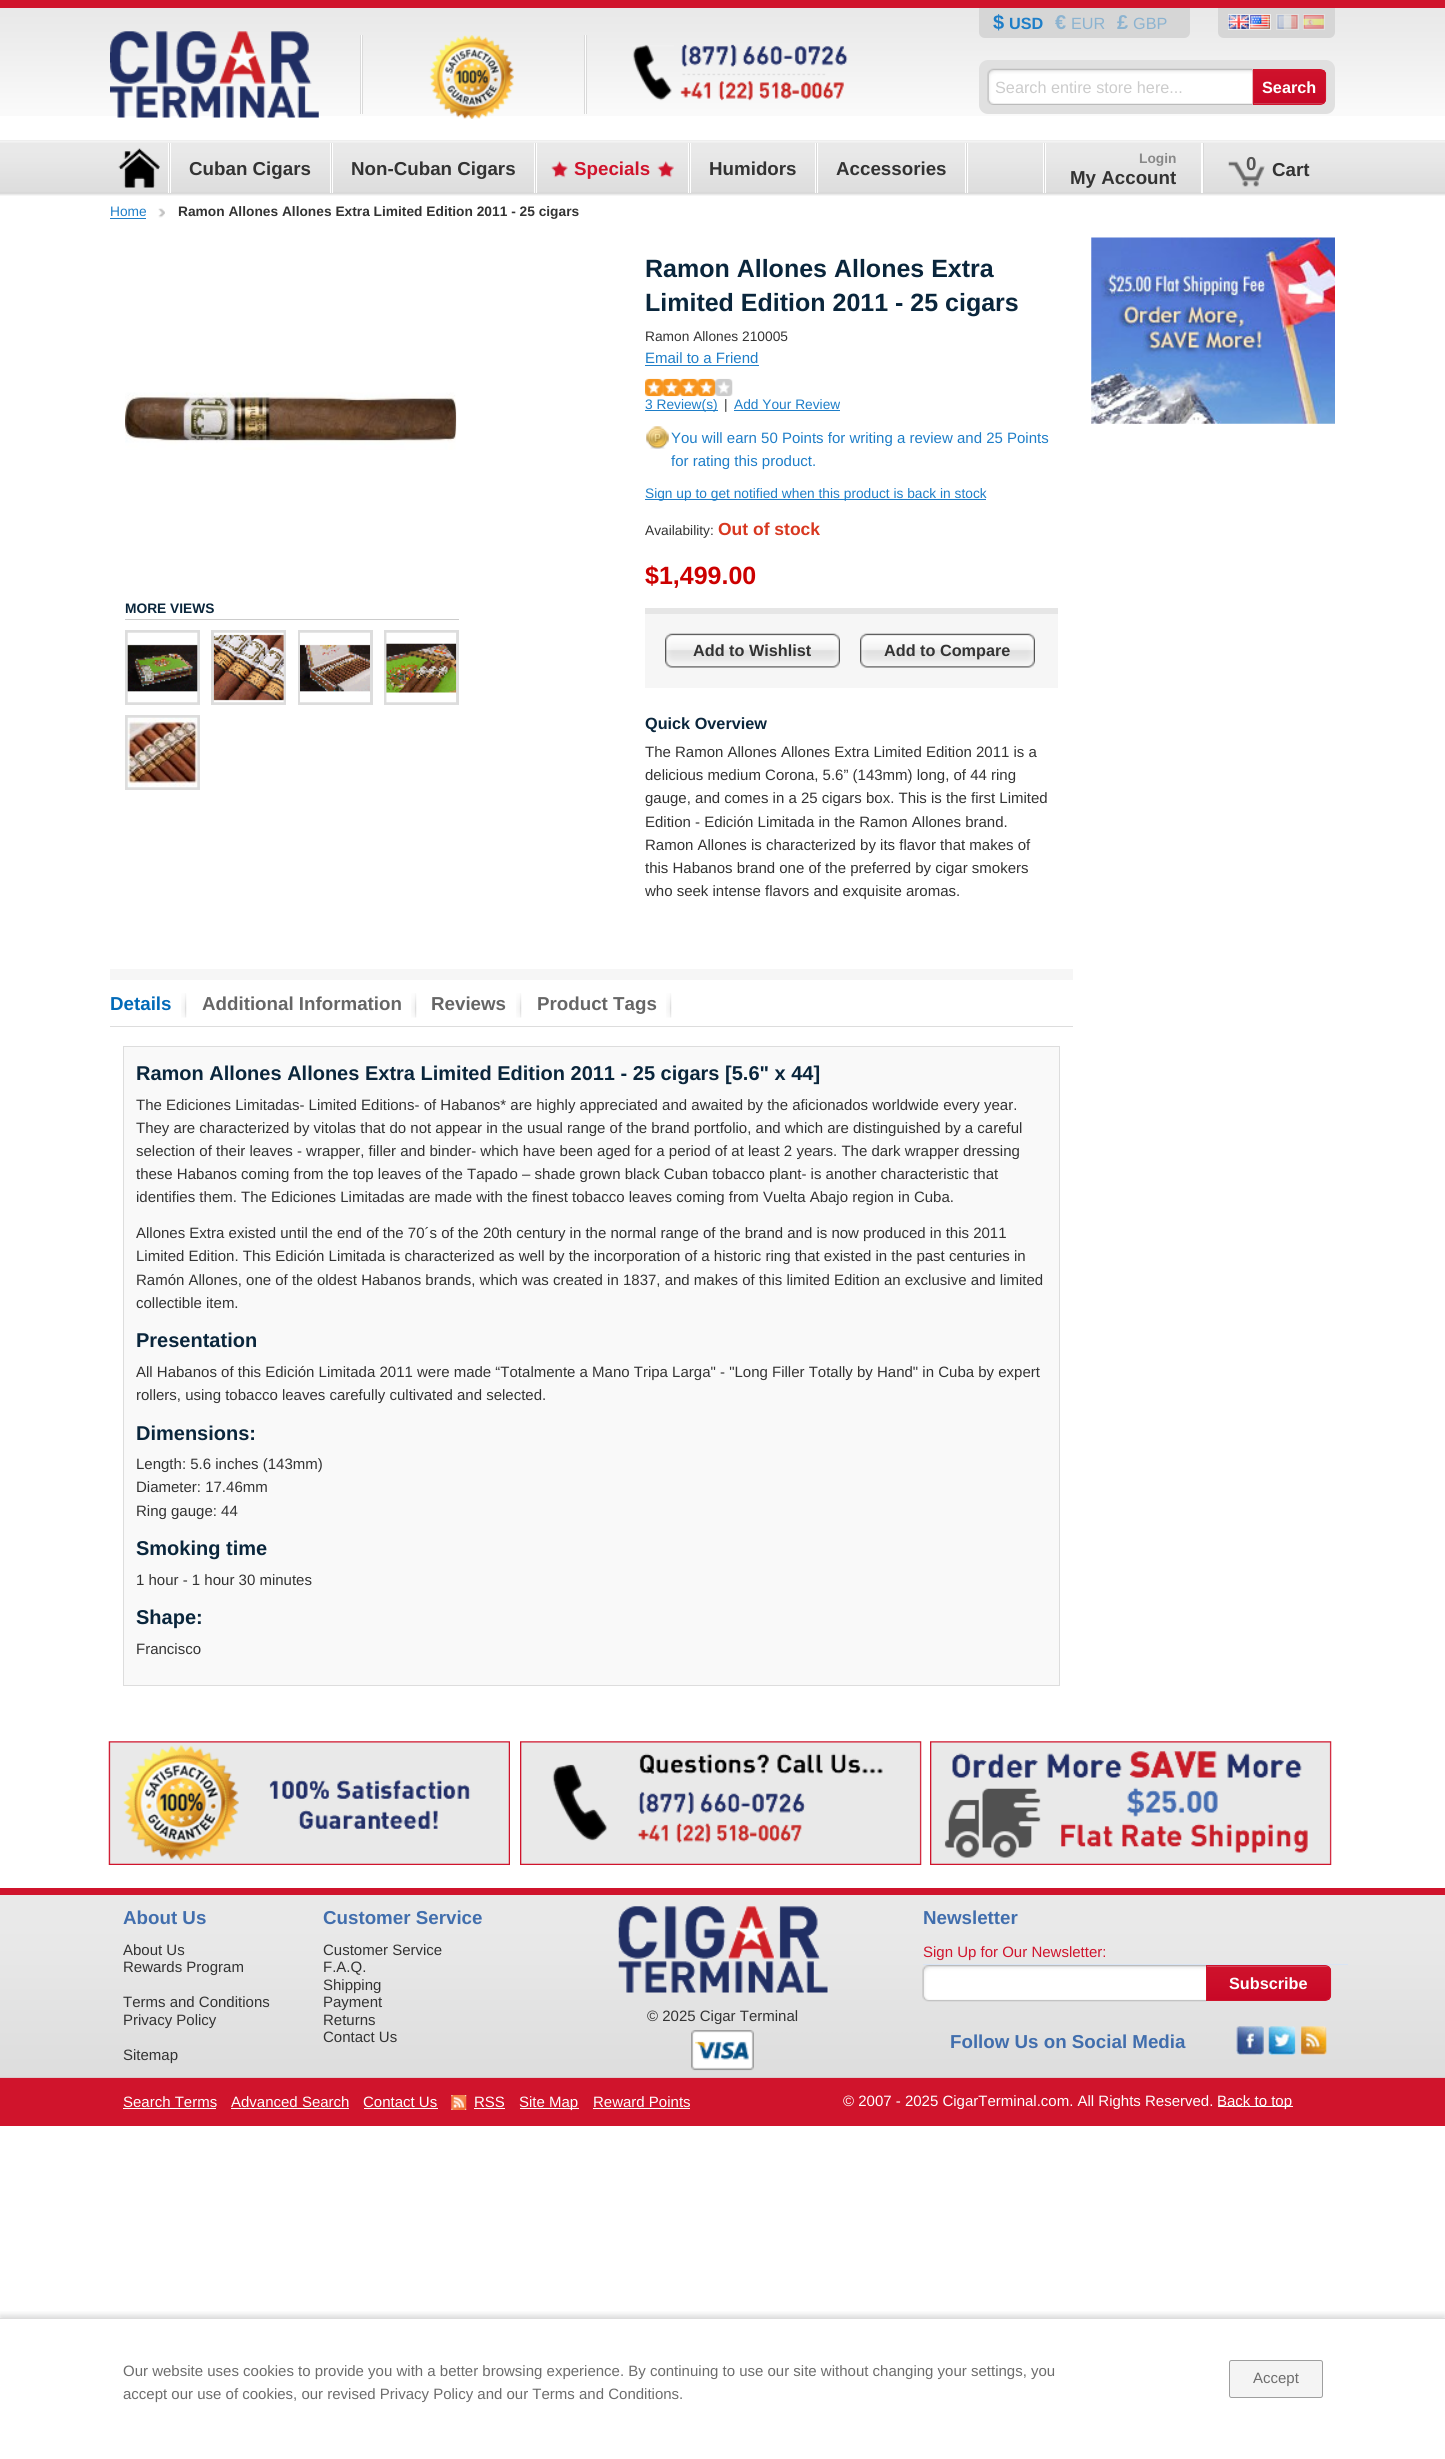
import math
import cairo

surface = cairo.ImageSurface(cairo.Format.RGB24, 1445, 2459)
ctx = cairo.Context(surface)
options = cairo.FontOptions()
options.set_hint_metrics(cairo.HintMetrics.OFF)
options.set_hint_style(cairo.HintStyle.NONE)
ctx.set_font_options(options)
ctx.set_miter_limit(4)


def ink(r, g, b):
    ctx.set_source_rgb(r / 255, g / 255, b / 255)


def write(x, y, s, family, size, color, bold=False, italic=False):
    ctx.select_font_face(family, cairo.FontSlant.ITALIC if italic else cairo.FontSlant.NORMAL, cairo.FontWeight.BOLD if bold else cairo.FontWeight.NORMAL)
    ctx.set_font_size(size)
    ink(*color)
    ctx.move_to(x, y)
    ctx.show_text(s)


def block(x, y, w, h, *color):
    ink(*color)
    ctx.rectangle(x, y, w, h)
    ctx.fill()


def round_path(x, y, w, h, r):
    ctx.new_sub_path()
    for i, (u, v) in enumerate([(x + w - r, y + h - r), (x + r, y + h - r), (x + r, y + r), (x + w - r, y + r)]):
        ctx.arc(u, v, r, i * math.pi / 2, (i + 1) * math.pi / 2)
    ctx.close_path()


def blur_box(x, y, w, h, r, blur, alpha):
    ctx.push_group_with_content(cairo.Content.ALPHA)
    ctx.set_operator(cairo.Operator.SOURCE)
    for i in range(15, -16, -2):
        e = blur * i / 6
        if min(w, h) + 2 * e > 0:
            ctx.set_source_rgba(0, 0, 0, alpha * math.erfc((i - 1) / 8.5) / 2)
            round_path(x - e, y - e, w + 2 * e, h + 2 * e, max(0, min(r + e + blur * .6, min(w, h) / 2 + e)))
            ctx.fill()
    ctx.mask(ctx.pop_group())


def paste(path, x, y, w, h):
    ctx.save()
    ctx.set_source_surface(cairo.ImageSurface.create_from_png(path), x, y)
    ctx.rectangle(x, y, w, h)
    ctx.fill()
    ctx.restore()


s1 = dict(family="Liberation Sans", size=20, color=(30, 126, 200), bold=True)
s2 = dict(family="Liberation Sans", size=16.25, color=(30, 126, 200), bold=True)
s3 = dict(family="Liberation Sans", size=20, color=(140, 179, 208), bold=True)
s4 = dict(family="Liberation Sans", size=16.25, color=(140, 179, 208))
s5 = dict(family="Liberation Sans", size=16.25, color=(204, 204, 204))
s6 = dict(family="Liberation Sans", size=16.25, color=(255, 255, 255), bold=True)
s7 = dict(family="Liberation Sans", size=18.75, color=(51, 51, 51), bold=True)
s8 = dict(family="Liberation Sans", size=18.75, color=(208, 20, 44), bold=True)
s9 = dict(family="Liberation Sans", size=13.75, color=(136, 136, 136), bold=True)
s10 = dict(family="Liberation Sans", size=18.75, color=(85, 85, 85), bold=True)
s11 = dict(family="Liberation Sans", size=13.75, color=(30, 126, 200))
s12 = dict(family="Liberation Sans", size=13.75, color=(51, 51, 51), bold=True)
s13 = dict(family="Liberation Sans", size=13.75, color=(10, 38, 60), bold=True)
s14 = dict(family="Liberation Sans", size=25, color=(10, 38, 60), bold=True)
s15 = dict(family="Liberation Sans", size=13.75, color=(51, 51, 51))
s16 = dict(family="Liberation Sans", size=15, color=(30, 126, 200))
s17 = dict(family="Liberation Sans", size=17.5, color=(216, 56, 32), bold=True)
s18 = dict(family="Liberation Sans", size=25, color=(204, 0, 0), bold=True)
s19 = dict(family="Liberation Sans", size=16.25, color=(51, 51, 51), bold=True)
s20 = dict(family="Liberation Sans", size=16.25, color=(10, 38, 60), bold=True)
s21 = dict(family="Liberation Sans", size=15, color=(51, 51, 51))
s22 = dict(family="Liberation Sans", size=18.75, color=(2, 106, 184), bold=True)
s23 = dict(family="Liberation Sans", size=18.75, color=(102, 102, 102), bold=True)
s24 = dict(family="Liberation Sans", size=20, color=(10, 38, 60), bold=True)
s25 = dict(family="Liberation Sans", size=18.75, color=(65, 110, 173), bold=True)
s26 = dict(family="Liberation Sans", size=15, color=(208, 20, 44))
s27 = dict(family="Liberation Sans", size=15, color=(255, 255, 255))
s28 = dict(family="Liberation Sans", size=15, color=(109, 109, 109))

ink(255, 255, 255)
ctx.paint()
paste("pic1.png", 0, 8, 1445, 108)
block(0, 0, 1445, 8, 208, 20, 44)
paste("pic2.png", 110, 31, 209, 87)
block(360, 35, 3, 79, 218, 218, 218)
block(361, 35, 1, 79, 255, 255, 255)
paste("pic3.png", 429, 35, 85, 84)
block(584, 35, 3, 79, 218, 218, 218)
block(585, 35, 1, 79, 255, 255, 255)
paste("pic4.png", 632, 44, 216, 57)
ink(214, 214, 214)
ctx.new_path()
ctx.move_to(979, 8)
ctx.line_to(1190, 8)
ctx.line_to(1190, 32)
ctx.curve_to(1190, 35.5, 1187.5, 38, 1184, 38)
ctx.line_to(985, 38)
ctx.curve_to(981.5, 38, 979, 35.5, 979, 32)
ctx.close_path()
ctx.fill()
write(993, 29, "$", **s1)
write(1009, 29, "USD", **s2)
write(1055, 29, "€", **s3)
write(1071, 29, "EUR", **s4)
write(1117, 29, "£", **s3)
write(1133, 29, "GBP", **s4)
ink(214, 214, 214)
ctx.new_path()
ctx.move_to(1218, 8)
ctx.line_to(1335, 8)
ctx.line_to(1335, 32)
ctx.curve_to(1335, 35.5, 1332.5, 38, 1329, 38)
ctx.line_to(1224, 38)
ctx.curve_to(1220.5, 38, 1218, 35.5, 1218, 32)
ctx.close_path()
ctx.fill()
ctx.rectangle(1228.5, 14.5, 42, 15)
ink(238, 238, 238)
ctx.set_line_width(1)
ctx.stroke()
ctx.rectangle(1276.5, 14.5, 22, 15)
ink(224, 224, 224)
ctx.stroke()
ctx.rectangle(1303.5, 14.5, 21, 15)
ctx.stroke()
paste("pic5.png", 1228, 15, 42, 14)
paste("pic6.png", 1277, 15, 21, 14)
paste("pic7.png", 1303, 15, 21, 14)
round_path(979, 60, 356, 54, 9)
ctx.fill()
paste("pic8.png", 987, 68, 266, 37)
write(995, 93, "Search entire store here...", **s5)
paste("pic9.png", 1252, 70, 75, 34)
ctx.new_path()
ctx.move_to(1253.5, 69.5)
ctx.line_to(1320, 69.5)
ctx.curve_to(1323, 69.5, 1325.5, 72, 1325.5, 75)
ctx.line_to(1325.5, 99)
ctx.curve_to(1325.5, 102, 1323, 104.5, 1320, 104.5)
ctx.line_to(1253.5, 104.5)
ctx.close_path()
ink(208, 20, 44)
ctx.stroke()
write(1262, 93, "Search", **s6)
paste("pic10.png", 0, 140, 1445, 56)
paste("pic11.png", 118, 148, 42, 40)
block(168, 143, 3, 50, 255, 255, 255)
block(169, 143, 1, 50, 217, 217, 217)
write(189, 175, "Cuban Cigars", **s7)
block(330, 143, 3, 50, 255, 255, 255)
block(331, 143, 1, 50, 217, 217, 217)
write(351, 175, "Non-Cuban Cigars", **s7)
block(534, 143, 3, 50, 255, 255, 255)
block(535, 143, 1, 50, 217, 217, 217)
paste("pic12.png", 551, 161, 123, 17)
write(574, 175, "Specials", **s8)
block(688, 143, 3, 50, 255, 255, 255)
block(689, 143, 1, 50, 217, 217, 217)
write(709, 175, "Humidors", **s7)
block(815, 143, 3, 50, 255, 255, 255)
block(816, 143, 1, 50, 217, 217, 217)
write(836, 175, "Accessories", **s7)
block(965, 143, 3, 50, 255, 255, 255)
block(966, 143, 1, 50, 217, 217, 217)
block(1043, 143, 3, 50, 255, 255, 255)
block(1044, 143, 1, 50, 217, 217, 217)
write(1139, 163, "Login", **s9)
write(1070, 184, "My Account", **s7)
block(1201, 143, 2, 50, 255, 255, 255)
block(1203, 143, 1, 50, 217, 217, 217)
paste("pic13.png", 1228, 161, 37, 26)
write(1246, 170, "0", **s10)
write(1272, 176, "Cart", **s7)
write(110, 216, "Home", **s11)
block(110, 218, 36, 1, 30, 126, 200)
paste("pic14.png", 158, 208, 7, 10)
write(178, 216, "Ramon Allones Allones Extra Limited Edition 2011 - 25 cigars", **s12)
paste("pic15.png", 125, 392, 332, 58)
block(125, 619, 334, 1, 204, 204, 204)
write(125, 613, "MORE VIEWS", **s13)
ctx.rectangle(126.5, 631.5, 72, 72)
ink(221, 221, 221)
ctx.set_line_width(3)
ctx.stroke()
paste("pic16.png", 127, 632, 71, 71)
ctx.rectangle(212.5, 631.5, 72, 72)
ctx.stroke()
paste("pic17.png", 213, 632, 71, 71)
ctx.rectangle(299.5, 631.5, 72, 72)
ctx.stroke()
paste("pic18.png", 300, 632, 70, 71)
ctx.rectangle(385.5, 631.5, 72, 72)
ctx.stroke()
paste("pic19.png", 386, 632, 71, 71)
ctx.rectangle(126.5, 716.5, 72, 72)
ctx.stroke()
paste("pic20.png", 127, 717, 71, 71)
write(645, 277, "Ramon Allones Allones Extra", **s14)
write(645, 311, "Limited Edition 2011 - 25 cigars", **s14)
write(645, 341, "Ramon Allones 210005", **s15)
write(645, 363, "Email to a Friend", **s16)
block(645, 365, 114, 1, 30, 126, 200)
paste("pic21.png", 645, 378, 88, 19)
block(645, 410, 73, 1, 30, 126, 200)
write(645, 409, "3 Review(s)", **s11)
write(724, 409, "|", **s15)
write(734, 409, "Add Your Review", **s11)
block(734, 410, 106, 1, 30, 126, 200)
paste("pic22.png", 646, 426, 23, 23)
write(671, 443, "You will earn 50 Points for writing a review and 25 Points", **s16)
write(671, 466, "for rating this product.", **s16)
block(645, 499, 341, 1, 30, 126, 200)
write(645, 498, "Sign up to get notified when this product is back in stock", **s11)
write(645, 535, "Availability:", **s15)
write(718, 535, "Out of stock", **s17)
write(645, 584, "$1,499.00", **s18)
block(645, 614, 413, 74, 246, 246, 246)
block(645, 608, 413, 6, 230, 230, 230)
paste("pic23.png", 665, 633, 175, 35)
write(693, 656, "Add to Wishlist", **s19)
paste("pic23.png", 860, 633, 175, 35)
write(884, 656, "Add to Compare", **s19)
write(645, 729, "Quick Overview", **s20)
write(645, 757, "The Ramon Allones Allones Extra Limited Edition 2011 is a", **s21)
write(645, 780, "delicious medium Corona, 5.6” (143mm) long, of 44 ring", **s21)
write(645, 803, "gauge, and comes in a 25 cigars box. This is the first Limited", **s21)
write(645, 827, "Edition - Edición Limitada in the Ramon Allones brand.", **s21)
write(645, 850, "Ramon Allones is characterized by its flavor that makes of", **s21)
write(645, 873, "this Habanos brand one of the preferred by cigar smokers", **s21)
write(645, 896, "who seek intense flavors and exquisite aromas.", **s21)
block(110, 969, 963, 11, 246, 246, 246)
block(110, 1026, 963, 1, 221, 221, 221)
paste("pic24.png", 181, 993, 6, 25)
write(110, 1010, "Details", **s22)
paste("pic25.png", 411, 993, 6, 25)
write(202, 1010, "Additional Information", **s23)
paste("pic24.png", 516, 993, 6, 25)
write(431, 1010, "Reviews", **s23)
paste("pic24.png", 666, 993, 6, 25)
write(537, 1010, "Product Tags", **s23)
ink(249, 249, 249)
ctx.rectangle(123.5, 1046.5, 936, 639)
ctx.fill_preserve()
ink(221, 221, 221)
ctx.set_line_width(1)
ctx.stroke()
write(136, 1080, "Ramon Allones Allones Extra Limited Edition 2011 - 25 cigars [5.6\" x 44]", **s24)
write(136, 1110, "The Ediciones Limitadas- Limited Editions- of Habanos* are highly appreciated and awaited by the aficionados worldwide every year.", **s21)
write(136, 1133, "They are characterized by vitolas that do not appear in the usual range of the brand portfolio, and which are distinguished by a careful", **s21)
write(136, 1156, "selection of their leaves - wrapper, filler and binder- which have been aged for a period of at least 2 years. The dark wrapper dressing", **s21)
write(136, 1179, "these Habanos coming from the top leaves of the Tapado – shade grown black Cuban tobacco plant- is another characteristic that", **s21)
write(136, 1202, "identifies them. The Ediciones Limitadas are made with the finest tobacco leaves coming from Vuelta Abajo region in Cuba.", **s21)
write(136, 1238, "Allones Extra existed until the end of the 70´s of the 20th century in the normal range of the brand and is now produced in this 2011", **s21)
write(136, 1261, "Limited Edition. This Edición Limitada is characterized as well by the incorporation of a historic ring that existed in the past centuries in", **s21)
write(136, 1285, "Ramón Allones, one of the oldest Habanos brands, which was created in 1837, and makes of this limited Edition an exclusive and limited", **s21)
write(136, 1308, "collectible item.", **s21)
write(136, 1347, "Presentation", **s24)
write(136, 1377, "All Habanos of this Edición Limitada 2011 were made “Totalmente a Mano Tripa Larga\" - \"Long Filler Totally by Hand\" in Cuba by expert", **s21)
write(136, 1400, "rollers, using tobacco leaves carefully cultivated and selected.", **s21)
write(136, 1440, "Dimensions:", **s24)
write(136, 1469, "Length: 5.6 inches (143mm)", **s21)
write(136, 1492, "Diameter: 17.46mm", **s21)
write(136, 1516, "Ring gauge: 44", **s21)
write(136, 1555, "Smoking time", **s24)
write(136, 1585, "1 hour - 1 hour 30 minutes", **s21)
write(136, 1624, "Shape:", **s24)
write(136, 1654, "Francisco", **s21)
paste("pic26.png", 1091, 237, 244, 187)
paste("pic27.png", 108, 1741, 402, 124)
paste("pic28.png", 520, 1741, 402, 124)
paste("pic29.png", 930, 1741, 402, 124)
paste("pic30.png", 0, 1895, 1445, 183)
block(0, 1888, 1445, 7, 208, 20, 44)
write(123, 1924, "About Us", **s25)
write(123, 1955, "About Us", **s21)
write(123, 1972, "Rewards Program", **s21)
write(123, 2007, "Terms and Conditions", **s21)
write(123, 2025, "Privacy Policy", **s21)
write(123, 2060, "Sitemap", **s21)
write(323, 1924, "Customer Service", **s25)
write(323, 1955, "Customer Service", **s21)
write(323, 1972, "F.A.Q.", **s21)
write(323, 1990, "Shipping", **s21)
write(323, 2007, "Payment", **s21)
write(323, 2025, "Returns", **s21)
write(323, 2042, "Contact Us", **s21)
paste("pic31.png", 618, 1906, 210, 87)
write(647, 2021, "© 2025 Cigar Terminal", **s21)
paste("pic32.png", 691, 2030, 63, 41)
write(923, 1924, "Newsletter", **s25)
write(923, 1957, "Sign Up for Our Newsletter:", **s26)
block(923, 1964, 425, 1, 216, 228, 245)
paste("pic33.png", 922, 1965, 285, 37)
paste("pic34.png", 1207, 1966, 125, 34)
ctx.new_path()
ctx.move_to(1206.5, 1965.5)
ctx.line_to(1325, 1965.5)
ctx.curve_to(1328, 1965.5, 1330.5, 1968, 1330.5, 1971)
ctx.line_to(1330.5, 1995)
ctx.curve_to(1330.5, 1998, 1328, 2000.5, 1325, 2000.5)
ctx.line_to(1206.5, 2000.5)
ctx.close_path()
ink(208, 20, 44)
ctx.stroke()
write(1229, 1989, "Subscribe", **s6)
write(950, 2048, "Follow Us on Social Media", **s25)
paste("pic35.png", 1236, 2026, 28, 29)
paste("pic36.png", 1268, 2026, 28, 29)
paste("pic37.png", 1301, 2026, 26, 29)
block(0, 2078, 1445, 48, 208, 20, 44)
write(123, 2107, "Search Terms", **s27)
block(123, 2108, 93, 1, 255, 255, 255)
write(231, 2107, "Advanced Search", **s27)
block(231, 2108, 118, 1, 255, 255, 255)
write(363, 2107, "Contact Us", **s27)
block(364, 2108, 74, 1, 255, 255, 255)
paste("pic38.png", 451, 2095, 16, 15)
write(474, 2107, "RSS", **s27)
block(474, 2108, 31, 1, 255, 255, 255)
block(520, 2108, 59, 1, 255, 255, 255)
write(519, 2107, "Site Map", **s27)
write(593, 2107, "Reward Points", **s27)
block(593, 2108, 97, 1, 255, 255, 255)
write(843, 2106, "© 2007 - 2025 CigarTerminal.com. All Rights Reserved.", **s27)
block(1218, 2106, 75, 1, 255, 255, 255)
write(1217, 2106, "Back to top", **s27)
ctx.save()
ctx.rectangle(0, 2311, 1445, 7)
ctx.clip()
ink(77, 77, 77)
blur_box(0, 2315, 1445, 143, 0, 3, 0.2)
ctx.restore()
block(0, 2318, 1445, 1, 221, 221, 221)
write(123, 2376, "Our website uses cookies to provide you with a better browsing experience. By continuing to use our site without changing your settings, you", **s28)
write(123, 2399, "accept our use of cookies, our revised Privacy Policy and our Terms and Conditions.", **s28)
ink(244, 244, 244)
round_path(1229.5, 2360.5, 93, 37, 2)
ctx.fill_preserve()
ink(159, 159, 159)
ctx.stroke()
write(1253, 2383, "Accept", **s28)
surface.write_to_png("screenshot.png")
